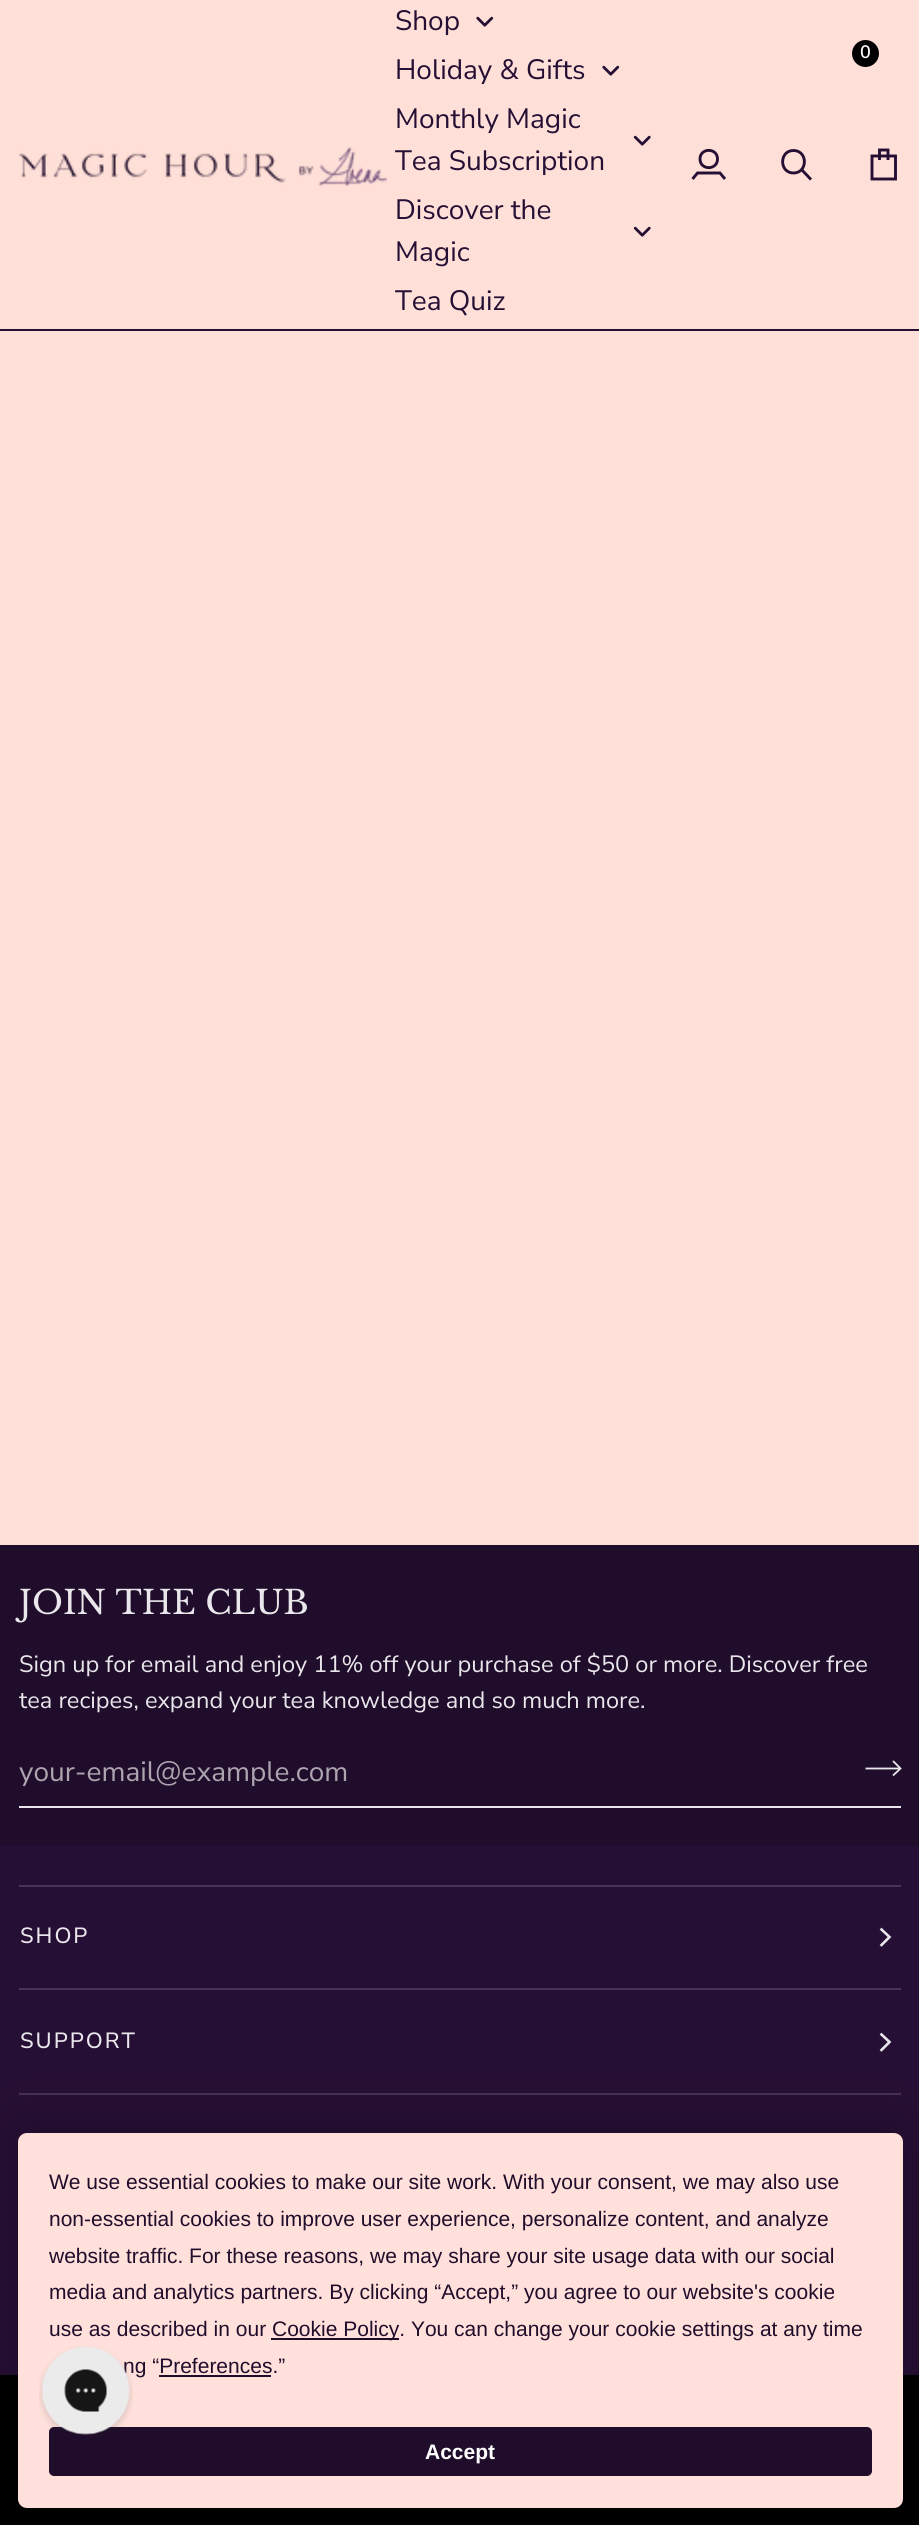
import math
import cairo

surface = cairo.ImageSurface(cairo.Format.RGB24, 919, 2525)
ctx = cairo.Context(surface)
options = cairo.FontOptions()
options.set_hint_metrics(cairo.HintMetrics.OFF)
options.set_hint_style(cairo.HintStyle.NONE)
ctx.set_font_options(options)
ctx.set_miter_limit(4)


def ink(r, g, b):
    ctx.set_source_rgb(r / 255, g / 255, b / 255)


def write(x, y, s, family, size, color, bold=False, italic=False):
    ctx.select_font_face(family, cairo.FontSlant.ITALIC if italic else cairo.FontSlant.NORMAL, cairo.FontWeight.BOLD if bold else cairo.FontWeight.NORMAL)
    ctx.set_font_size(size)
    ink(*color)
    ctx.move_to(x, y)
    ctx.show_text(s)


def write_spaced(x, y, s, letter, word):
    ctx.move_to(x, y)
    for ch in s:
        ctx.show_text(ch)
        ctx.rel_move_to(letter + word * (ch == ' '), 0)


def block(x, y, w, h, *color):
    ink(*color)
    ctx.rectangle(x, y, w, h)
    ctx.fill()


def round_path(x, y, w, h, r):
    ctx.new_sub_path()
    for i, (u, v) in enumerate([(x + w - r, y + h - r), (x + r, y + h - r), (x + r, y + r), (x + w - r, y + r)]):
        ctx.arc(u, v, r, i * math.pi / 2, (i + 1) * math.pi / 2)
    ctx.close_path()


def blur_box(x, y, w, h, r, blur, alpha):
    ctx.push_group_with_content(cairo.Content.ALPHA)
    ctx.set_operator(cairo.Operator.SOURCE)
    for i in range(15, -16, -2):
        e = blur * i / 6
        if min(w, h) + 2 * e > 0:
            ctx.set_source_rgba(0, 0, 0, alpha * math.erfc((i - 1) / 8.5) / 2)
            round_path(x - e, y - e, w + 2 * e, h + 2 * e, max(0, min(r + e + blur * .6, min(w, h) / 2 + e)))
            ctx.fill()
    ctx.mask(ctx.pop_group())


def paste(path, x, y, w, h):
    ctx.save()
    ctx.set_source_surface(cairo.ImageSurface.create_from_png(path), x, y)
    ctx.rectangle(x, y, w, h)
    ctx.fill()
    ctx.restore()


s1 = dict(family="Nunito Sans", size=28, color=(38, 15, 52))
s2 = dict(family="Nunito Sans SemiBold", size=18, color=(255, 255, 255))
s3 = dict(family="Libre Baskerville", size=32.75, color=(233, 231, 235))
s4 = dict(family="Nunito Sans", size=23.6, color=(233, 231, 235))
s5 = dict(family="Nunito Sans", size=28, color=(172, 165, 176))
s6 = dict(family="Liberation Sans", size=21, color=(32, 13, 43))
s7 = dict(family="Liberation Sans", size=21, color=(255, 255, 255), bold=True)

ink(255, 224, 216)
ctx.paint()
block(0, 329, 919, 2, 38, 15, 52)
write(395, 30, "Shop", **s1)
paste("pic1.png", 476, 16, 18, 11)
write(395, 79, "Holiday & Gifts", **s1)
paste("pic1.png", 602, 65, 18, 11)
write(395, 128, "Monthly Magic", **s1)
paste("pic2.png", 633, 135, 18, 11)
write(395, 170, "Tea Subscription", **s1)
write(395, 219, "Discover the", **s1)
paste("pic2.png", 633, 226, 18, 11)
write(395, 261, "Magic", **s1)
write(395, 310, "Tea Quiz", **s1)
ink(0, 0, 0)
ctx.new_path()
ctx.arc(865.5, 53.5, 13.5, 0, 2 * math.pi)
ctx.fill()
write(860, 58, "0", **s2)
ctx.new_path()
ctx.move_to(872, 156)
ctx.line_to(895.5, 156)
ctx.line_to(895.5, 179)
ctx.line_to(872, 179)
ctx.close_path()
ctx.move_to(879.5, 160)
ctx.line_to(879.5, 150)
ctx.line_to(888, 150)
ctx.line_to(888, 160)
ink(38, 15, 52)
ctx.set_line_width(2.9)
ctx.stroke()
ctx.new_path()
ctx.move_to(692.5, 179)
ctx.line_to(697.5, 173)
ctx.line_to(720, 173)
ctx.line_to(725, 179)
ctx.move_to(717.5, 159)
ctx.curve_to(717.5, 170.5, 700, 170.5, 700, 159)
ctx.curve_to(700, 147.5, 717.5, 147.5, 717.5, 159)
ctx.close_path()
ctx.stroke()
ctx.new_path()
ctx.move_to(793.5, 173)
ctx.curve_to(808, 173, 808, 150.5, 793.5, 150.5)
ctx.curve_to(779, 150.5, 779, 173, 793.5, 173)
ctx.close_path()
ctx.move_to(810, 178.5)
ctx.line_to(802, 170)
ctx.set_line_cap(cairo.LineCap.SQUARE)
ctx.stroke()
paste("pic3.png", 19, 146, 368, 40)
block(0, 1545, 919, 301, 32, 13, 43)
write(19, 1614, "JOIN THE CLUB", **s3)
write(19, 1672, "Sign up for email and enjoy 11% off your purchase of $50 or more. Discover free", **s4)
write(19, 1708, "tea recipes, expand your tea knowledge and so much more.", **s4)
block(19, 1806, 882, 2, 233, 231, 234)
write(19, 1781, "your-email@example.com", **s5)
ctx.new_path()
ctx.move_to(893, 1761)
ctx.line_to(900.5, 1768.5)
ctx.line_to(893, 1775.5)
ctx.move_to(865.5, 1768.5)
ctx.line_to(900.5, 1768.5)
ink(233, 231, 234)
ctx.set_line_width(1.8)
ctx.set_line_cap(cairo.LineCap.BUTT)
ctx.stroke()
block(0, 1846, 919, 529, 38, 15, 52)
block(19, 1885, 882, 2, 71, 51, 82)
block(19, 1988, 882, 2, 71, 51, 82)
ctx.select_font_face("Nunito Sans Medium")
ctx.set_font_size(22)
ink(233, 231, 235)
write_spaced(20, 1943, "SHOP", 2, 0)
ctx.new_path()
ctx.move_to(881.5, 1945)
ctx.line_to(889.5, 1937)
ctx.line_to(881.5, 1929.5)
ctx.set_line_width(2.6)
ctx.set_line_cap(cairo.LineCap.SQUARE)
ctx.stroke()
block(19, 2093, 882, 2, 71, 51, 82)
ink(233, 231, 235)
write_spaced(20, 2048, "SUPPORT", 2, 0)
ctx.new_path()
ctx.move_to(881.5, 2050)
ctx.line_to(889.5, 2042)
ctx.line_to(881.5, 2034.5)
ctx.stroke()
block(0, 2375, 919, 150, 0, 0, 0)
ink(0, 0, 0)
blur_box(18, 2133, 885, 375, 9, 30.5, 0.25)
ink(255, 224, 219)
round_path(18, 2133, 885, 375, 9)
ctx.fill()
write(49, 2189, "We use essential cookies to make our site work. With your consent, we may also use", **s6)
write(49, 2226, "non-essential cookies to improve user experience, personalize content, and analyze", **s6)
write(49, 2263, "website traffic. For these reasons, we may share your site usage data with our social", **s6)
write(49, 2299, "media and analytics partners. By clicking “Accept,” you agree to our website's cookie", **s6)
write(49, 2336, "use as described in our", **s6)
block(271, 2338, 128, 2, 32, 13, 43)
write(272, 2336, "Cookie Policy. You can change your cookie settings at any time", **s6)
write(123, 2373, "ng “Preferences.”", **s6)
block(159, 2375, 112, 2, 32, 13, 43)
round_path(50, 2428, 821, 47, 4)
ctx.fill_preserve()
ctx.set_line_width(2)
ctx.set_line_cap(cairo.LineCap.BUTT)
ctx.stroke()
write(425, 2459, "Accept", **s7)
paste("pic4.png", 39, 2346, 94, 89)
surface.write_to_png("screenshot.png")
